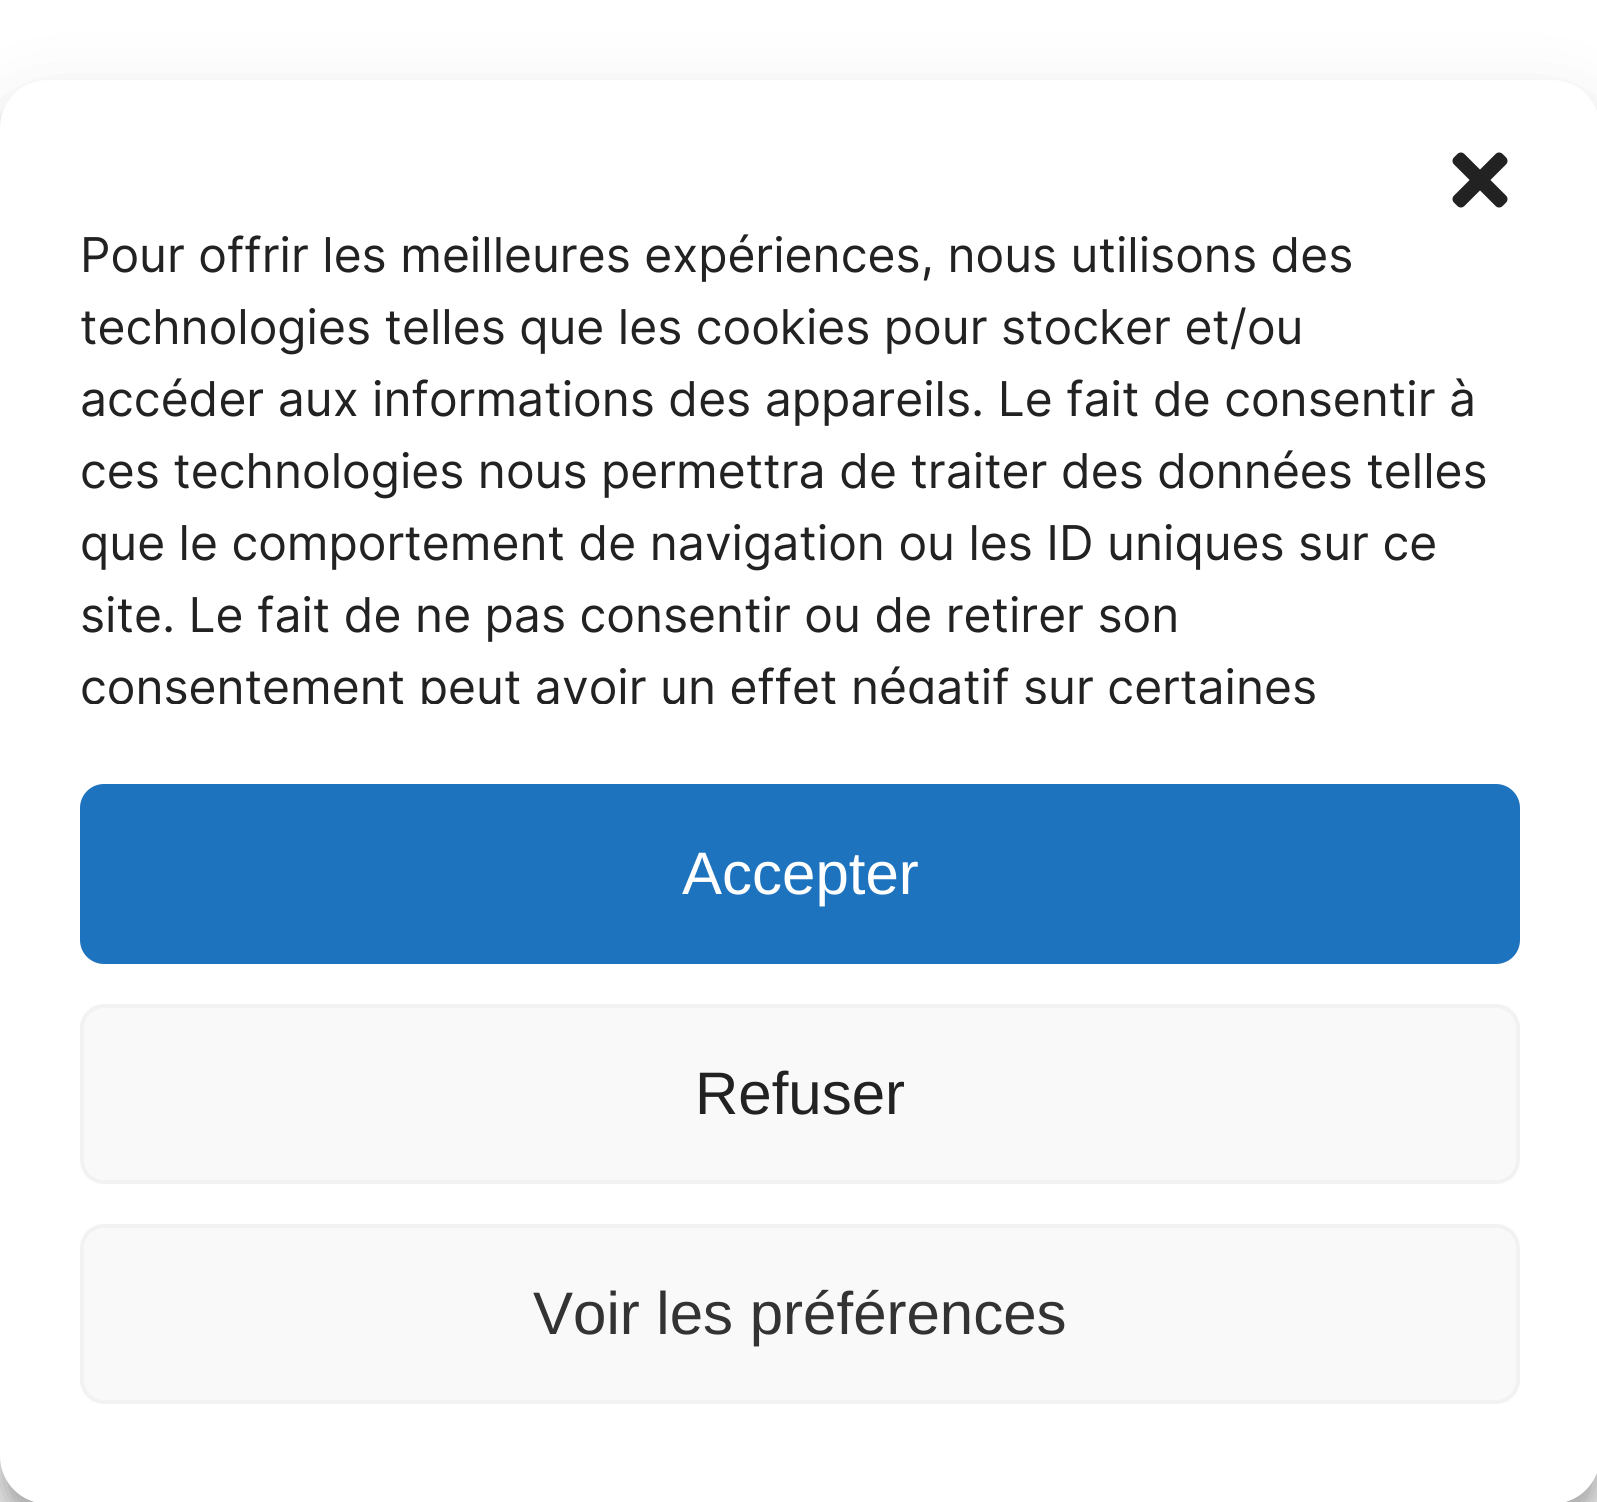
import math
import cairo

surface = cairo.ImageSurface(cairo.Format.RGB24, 1597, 1502)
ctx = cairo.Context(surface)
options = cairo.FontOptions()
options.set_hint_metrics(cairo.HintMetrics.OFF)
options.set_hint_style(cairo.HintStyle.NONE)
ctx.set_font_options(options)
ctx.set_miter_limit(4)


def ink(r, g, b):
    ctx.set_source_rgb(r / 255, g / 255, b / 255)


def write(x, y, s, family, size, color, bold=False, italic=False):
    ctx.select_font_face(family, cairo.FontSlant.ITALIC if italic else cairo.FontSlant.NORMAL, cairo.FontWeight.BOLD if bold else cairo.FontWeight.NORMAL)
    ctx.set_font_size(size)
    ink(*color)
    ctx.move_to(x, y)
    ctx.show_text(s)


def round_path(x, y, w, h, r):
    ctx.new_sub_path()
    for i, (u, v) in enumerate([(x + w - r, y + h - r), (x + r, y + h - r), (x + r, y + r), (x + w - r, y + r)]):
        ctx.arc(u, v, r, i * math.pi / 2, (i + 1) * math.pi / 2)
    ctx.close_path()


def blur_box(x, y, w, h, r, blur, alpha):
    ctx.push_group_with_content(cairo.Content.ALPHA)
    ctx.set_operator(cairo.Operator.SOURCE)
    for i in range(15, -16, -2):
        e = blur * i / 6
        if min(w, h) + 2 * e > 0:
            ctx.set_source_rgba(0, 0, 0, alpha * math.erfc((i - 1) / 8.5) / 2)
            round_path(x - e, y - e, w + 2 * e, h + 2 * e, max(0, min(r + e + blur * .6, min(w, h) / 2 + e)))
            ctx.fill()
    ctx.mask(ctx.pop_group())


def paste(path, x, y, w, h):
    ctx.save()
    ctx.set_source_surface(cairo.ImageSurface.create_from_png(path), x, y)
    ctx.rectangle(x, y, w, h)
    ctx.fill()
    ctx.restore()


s1 = dict(family="Inter", size=48, color=(34, 34, 34))
s2 = dict(family="Liberation Sans", size=60, color=(255, 255, 255))
s3 = dict(family="Liberation Sans", size=60, color=(34, 34, 34))
s4 = dict(family="Liberation Sans", size=60, color=(51, 51, 51))

ink(255, 255, 255)
ctx.paint()
ink(0, 0, 0)
blur_box(0, 104, 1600, 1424, 48, 12, 0.23)
blur_box(0, 120, 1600, 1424, 48, 40, 0.19)
ink(255, 255, 255)
round_path(0, 80, 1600, 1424, 48)
ctx.fill()
paste("pic1.png", 1452, 152, 56, 56)
write(80, 272, "Pour offrir les meilleures expériences, nous utilisons des", **s1)
write(80, 344, "technologies telles que les cookies pour stocker et/ou", **s1)
write(80, 416, "accéder aux informations des appareils. Le fait de consentir à", **s1)
write(80, 488, "ces technologies nous permettra de traiter des données telles", **s1)
write(80, 560, "que le comportement de navigation ou les ID uniques sur ce", **s1)
write(80, 632, "site. Le fait de ne pas consentir ou de retirer son", **s1)
ctx.save()
ctx.rectangle(80, 220, 1440, 484)
ctx.clip()
write(80, 704, "consentement peut avoir un effet négatif sur certaines", **s1)
ctx.restore()
ink(30, 115, 190)
round_path(82, 786, 1436, 176, 22)
ctx.fill_preserve()
ctx.set_line_width(4)
ctx.stroke()
write(682, 894, "Accepter", **s2)
ink(249, 249, 249)
round_path(82, 1006, 1436, 176, 22)
ctx.fill_preserve()
ink(242, 242, 242)
ctx.stroke()
write(695, 1114, "Refuser", **s3)
ink(249, 249, 249)
round_path(82, 1226, 1436, 176, 22)
ctx.fill_preserve()
ink(242, 242, 242)
ctx.stroke()
write(533, 1334, "Voir les préférences", **s4)
surface.write_to_png("screenshot.png")
